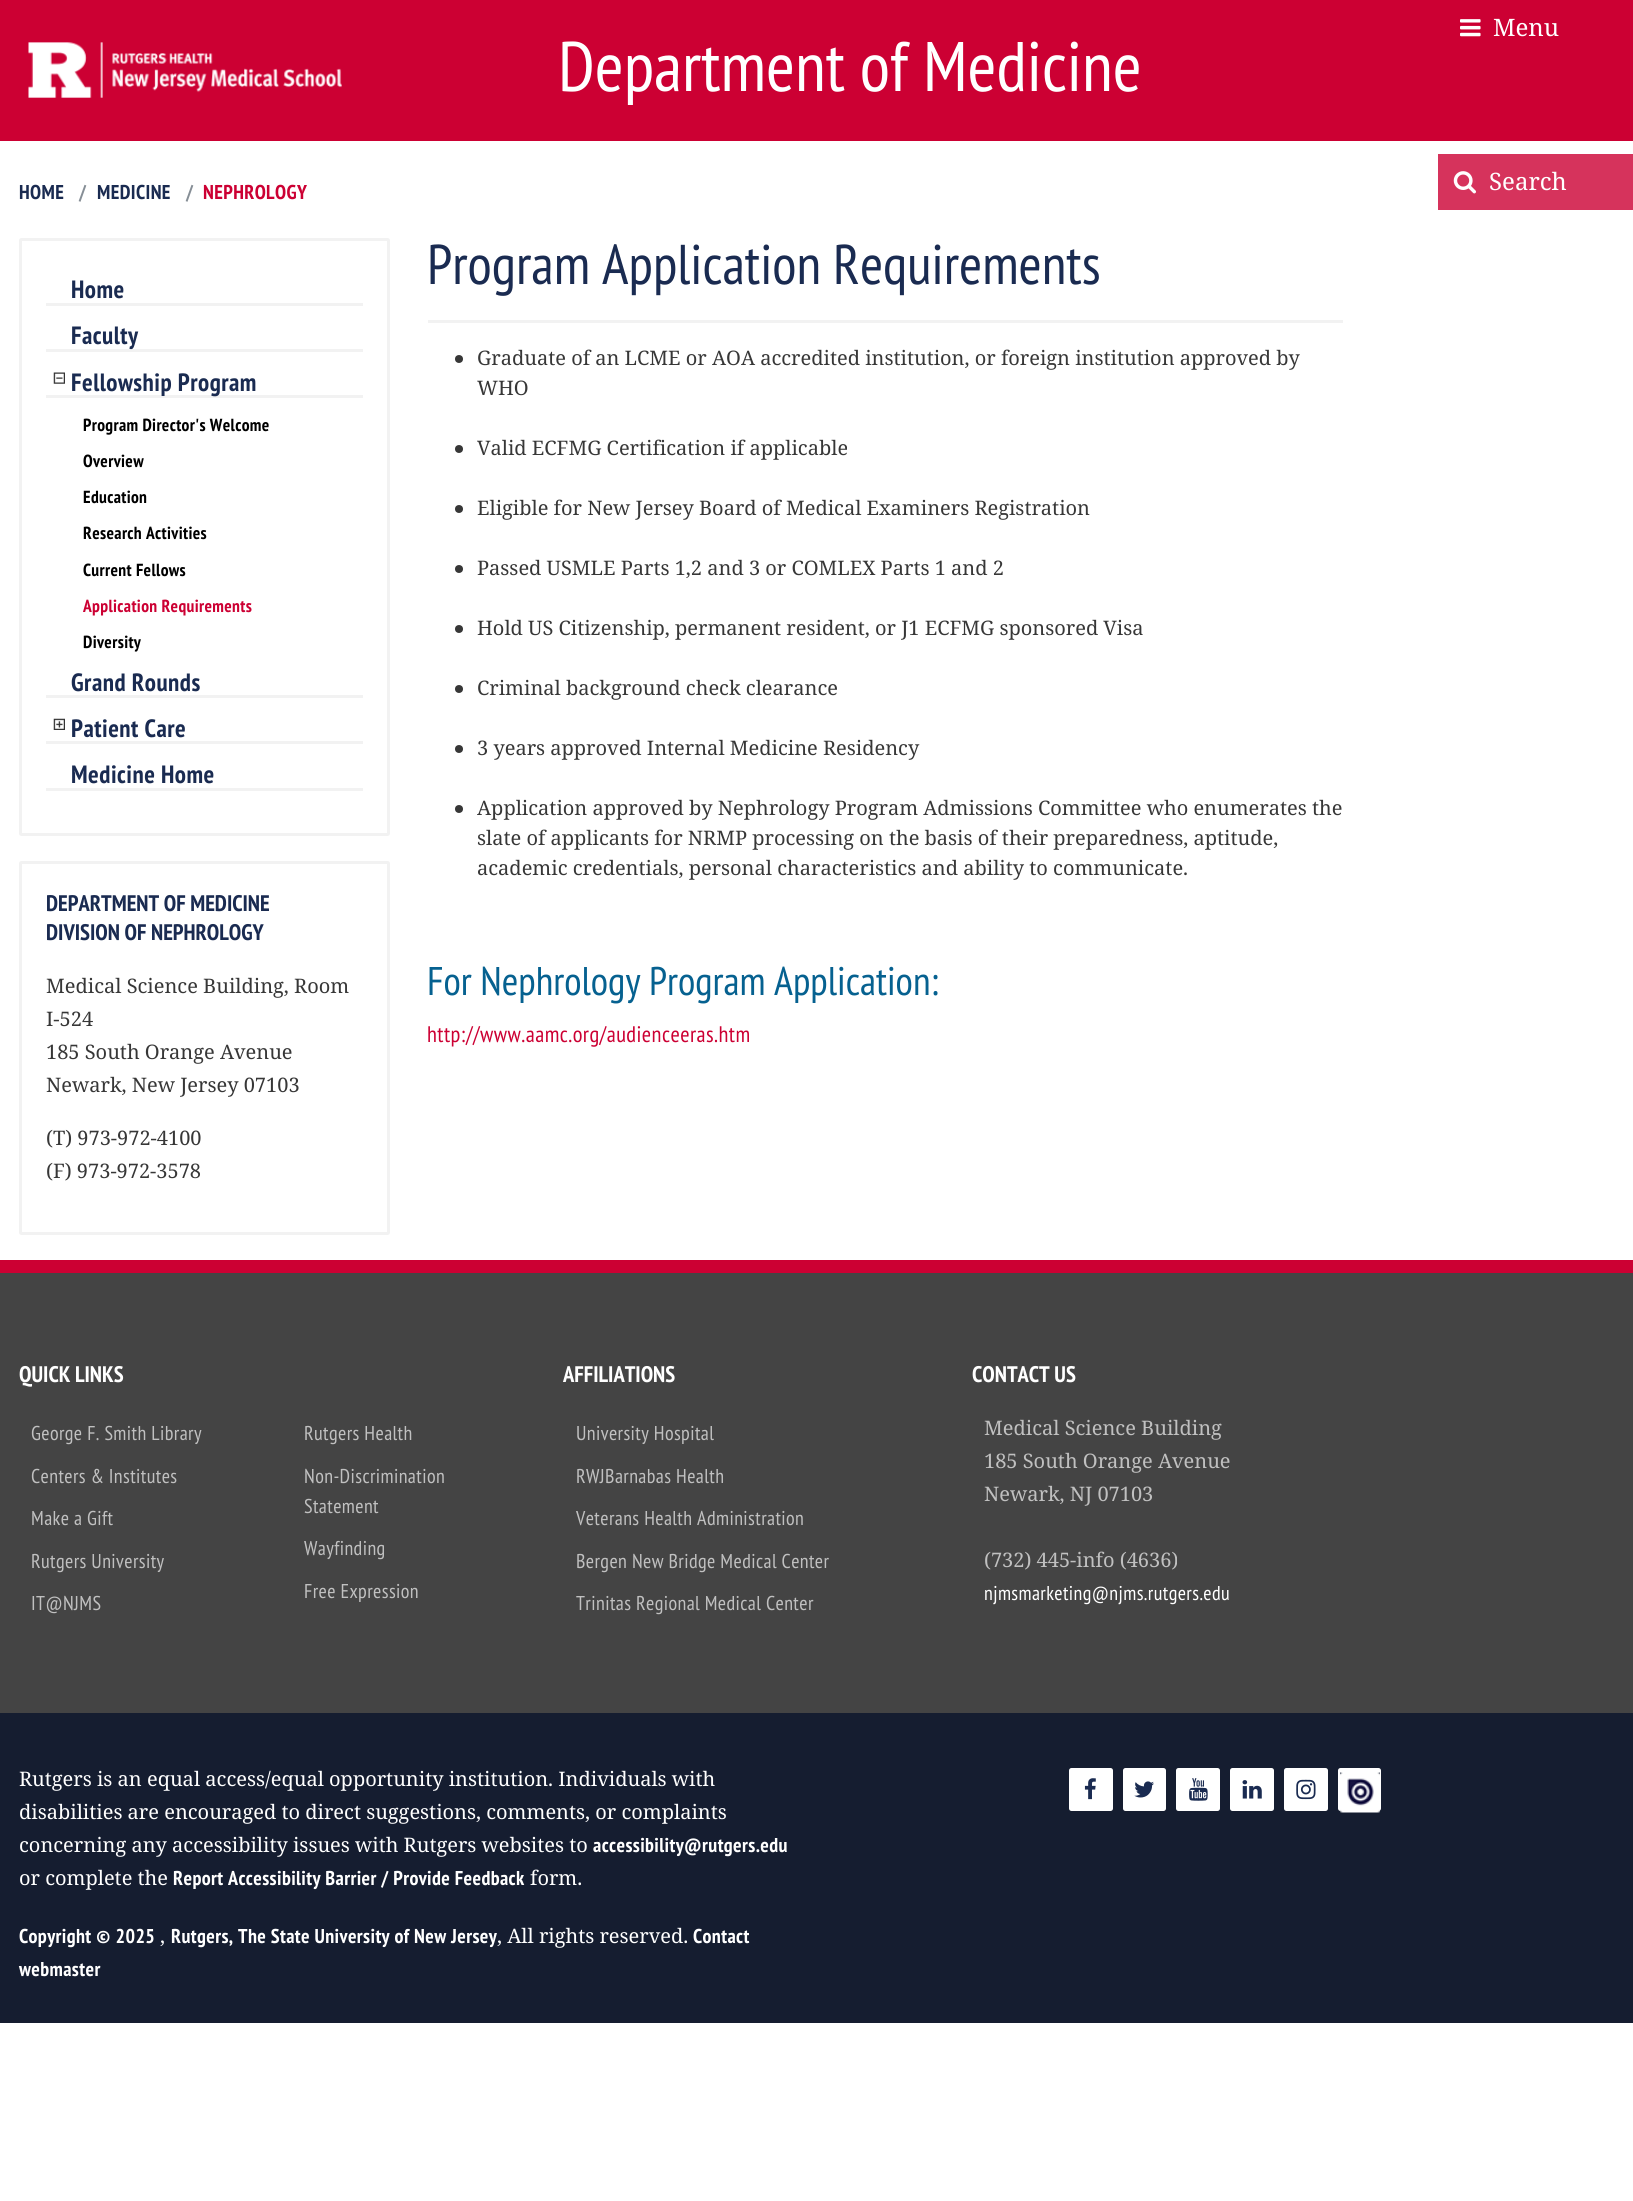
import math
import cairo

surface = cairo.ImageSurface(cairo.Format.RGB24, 1633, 2201)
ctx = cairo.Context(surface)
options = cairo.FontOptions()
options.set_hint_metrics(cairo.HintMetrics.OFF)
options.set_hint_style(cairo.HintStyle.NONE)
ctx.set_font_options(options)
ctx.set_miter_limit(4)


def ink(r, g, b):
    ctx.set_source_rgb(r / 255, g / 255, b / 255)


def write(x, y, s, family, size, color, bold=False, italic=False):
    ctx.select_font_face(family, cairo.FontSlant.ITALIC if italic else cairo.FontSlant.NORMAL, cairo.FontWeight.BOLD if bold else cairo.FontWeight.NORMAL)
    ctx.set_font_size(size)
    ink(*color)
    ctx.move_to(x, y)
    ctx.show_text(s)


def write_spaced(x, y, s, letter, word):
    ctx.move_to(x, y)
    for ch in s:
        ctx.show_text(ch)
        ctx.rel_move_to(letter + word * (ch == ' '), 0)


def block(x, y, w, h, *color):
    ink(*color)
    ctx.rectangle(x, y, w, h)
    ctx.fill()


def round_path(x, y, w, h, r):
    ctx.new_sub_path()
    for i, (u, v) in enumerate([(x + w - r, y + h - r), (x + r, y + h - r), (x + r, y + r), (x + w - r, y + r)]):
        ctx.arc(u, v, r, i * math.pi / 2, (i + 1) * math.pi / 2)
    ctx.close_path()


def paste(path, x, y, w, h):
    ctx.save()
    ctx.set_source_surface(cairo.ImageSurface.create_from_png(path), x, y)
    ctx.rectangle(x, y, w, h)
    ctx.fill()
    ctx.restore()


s1 = dict(family="Noto Serif", size=24, color=(255, 255, 255))
s2 = dict(family="PT Sans Narrow", size=70, color=(255, 255, 255))
s3 = dict(family="PT Sans Narrow", size=22.5, color=(26, 43, 81), bold=True)
s4 = dict(family="Noto Serif", size=20, color=(55, 55, 55))
s5 = dict(family="PT Sans Narrow", size=56, color=(26, 43, 81))
s6 = dict(family="PT Sans Narrow", size=40, color=(6, 97, 144))
s7 = dict(family="PT Sans Narrow", size=22.5, color=(255, 255, 255), bold=True)
s8 = dict(family="Noto Serif", size=20, color=(192, 192, 192))
s9 = dict(family="Noto Serif", size=20, color=(255, 255, 255))

ink(255, 255, 255)
ctx.paint()
block(0, 0, 1633, 141, 204, 0, 51)
paste("pic1.png", 1460, 19, 21, 18)
write(1493, 36, "Menu", **s1)
paste("pic2.png", 28, 42, 314, 56)
write(558, 91, "Department of Medicine", **s2)
block(1438, 154, 195, 56, 214, 51, 92)
paste("pic3.png", 1453, 171, 23, 23)
write(1489, 190, "Search", **s1)
ctx.select_font_face("PT Sans Narrow", cairo.FontSlant.NORMAL, cairo.FontWeight.BOLD)
ctx.set_font_size(20)
ink(26, 43, 81)
write_spaced(19, 199, "HOME", 0.4, 0)
ink(134, 142, 150)
write_spaced(79, 199, "/", 0.4, 0)
ink(26, 43, 81)
write_spaced(97, 199, "MEDICINE", 0.4, 0)
ink(134, 142, 150)
write_spaced(186, 199, "/", 0.4, 0)
ink(204, 0, 51)
write_spaced(203, 199, "NEPHROLOGY", 0.4, 0)
round_path(20.5, 239.5, 368, 595, 1)
ink(242, 242, 242)
ctx.set_line_width(3)
ctx.stroke()
block(46, 303, 317, 3, 242, 242, 242)
ctx.set_font_size(25)
ink(26, 43, 81)
write_spaced(71, 298, "Home", 0.5, 0)
block(46, 349, 317, 3, 242, 242, 242)
ink(26, 43, 81)
write_spaced(71, 344, "Faculty", 0.5, 0)
paste("pic4.png", 53, 372, 12, 12)
block(46, 395, 317, 3, 242, 242, 242)
ink(26, 43, 81)
write_spaced(71, 391, "Fellowship Program", 0.5, 0)
ctx.set_font_size(17.5)
ink(0, 0, 0)
write_spaced(83, 431, "Program Director's Welcome", 0.35, 0)
write_spaced(83, 467, "Overview", 0.35, 0)
write_spaced(83, 503, "Education", 0.35, 0)
write_spaced(83, 539, "Research Activities", 0.35, 0)
write_spaced(83, 576, "Current Fellows", 0.35, 0)
ink(204, 0, 51)
write_spaced(83, 612, "Application Requirements", 0.35, 0)
ink(0, 0, 0)
write_spaced(83, 648, "Diversity", 0.35, 0)
block(46, 695, 317, 3, 242, 242, 242)
ctx.set_font_size(25)
ink(26, 43, 81)
write_spaced(71, 691, "Grand Rounds", 0.5, 0)
paste("pic5.png", 53, 718, 12, 12)
block(46, 741, 317, 3, 242, 242, 242)
ink(26, 43, 81)
write_spaced(71, 737, "Patient Care", 0.5, 0)
block(46, 788, 317, 3, 242, 242, 242)
ink(26, 43, 81)
write_spaced(71, 783, "Medicine Home", 0.5, 0)
round_path(20.5, 862.5, 368, 371, 1)
ink(242, 242, 242)
ctx.stroke()
write(46, 911, "DEPARTMENT OF MEDICINE", **s3)
write(46, 940, "DIVISION OF NEPHROLOGY", **s3)
write(46, 993, "Medical Science Building, Room", **s4)
write(46, 1026, "I-524", **s4)
write(46, 1059, "185 South Orange Avenue", **s4)
write(46, 1092, "Newark, New Jersey 07103", **s4)
write(46, 1145, "(T) 973-972-4100", **s4)
write(46, 1178, "(F) 973-972-3578", **s4)
write(427, 284, "Program Application Requirements", **s5)
block(428, 320, 915, 3, 242, 242, 242)
ink(55, 55, 55)
ctx.new_path()
ctx.arc(459, 359, 4, 0, 2 * math.pi)
ctx.fill()
write(477, 365, "Graduate of an LCME or AOA accredited institution, or foreign institution approved by", **s4)
write(477, 395, "WHO", **s4)
ctx.new_path()
ctx.arc(459, 449, 4, 0, 2 * math.pi)
ctx.fill()
write(477, 455, "Valid ECFMG Certification if applicable", **s4)
ctx.new_path()
ctx.arc(459, 509, 4, 0, 2 * math.pi)
ctx.fill()
write(477, 515, "Eligible for New Jersey Board of Medical Examiners Registration", **s4)
ctx.new_path()
ctx.arc(459, 569, 4, 0, 2 * math.pi)
ctx.fill()
write(477, 575, "Passed USMLE Parts 1,2 and 3 or COMLEX Parts 1 and 2", **s4)
ctx.new_path()
ctx.arc(459, 629, 4, 0, 2 * math.pi)
ctx.fill()
write(477, 635, "Hold US Citizenship, permanent resident, or J1 ECFMG sponsored Visa", **s4)
ctx.new_path()
ctx.arc(459, 689, 4, 0, 2 * math.pi)
ctx.fill()
write(477, 695, "Criminal background check clearance", **s4)
ctx.new_path()
ctx.arc(459, 749, 4, 0, 2 * math.pi)
ctx.fill()
write(477, 755, "3 years approved Internal Medicine Residency", **s4)
ctx.new_path()
ctx.arc(459, 809, 4, 0, 2 * math.pi)
ctx.fill()
write(477, 815, "Application approved by Nephrology Program Admissions Committee who enumerates the", **s4)
write(477, 845, "slate of applicants for NRMP processing on the basis of their preparedness, aptitude,", **s4)
write(477, 875, "academic credentials, personal characteristics and ability to communicate.", **s4)
write(427, 995, "For Nephrology Program Application:", **s6)
ctx.set_font_size(22.5)
ink(204, 0, 51)
write_spaced(427, 1042, "http://www.aamc.org/audienceeras.htm", 0.45, 0)
block(0, 1273, 1633, 440, 68, 68, 68)
block(0, 1260, 1633, 13, 204, 0, 51)
write(19, 1382, "QUICK LINKS", **s7)
ctx.select_font_face("PT Sans Narrow")
ctx.set_font_size(20)
ink(192, 192, 192)
write_spaced(31, 1440, "George F. Smith Library", 0.4, 0)
write_spaced(31, 1483, "Centers & Institutes", 0.4, 0)
write_spaced(31, 1525, "Make a Gift", 0.4, 0)
write_spaced(31, 1568, "Rutgers University", 0.4, 0)
write_spaced(31, 1610, "IT@NJMS", 0.4, 0)
write_spaced(304, 1440, "Rutgers Health", 0.4, 0)
write_spaced(304, 1483, "Non-Discrimination", 0.4, 0)
write_spaced(304, 1513, "Statement", 0.4, 0)
write_spaced(304, 1555, "Wayfinding", 0.4, 0)
write_spaced(304, 1598, "Free Expression", 0.4, 0)
write(563, 1382, "AFFILIATIONS", **s7)
ctx.select_font_face("PT Sans Narrow")
ctx.set_font_size(20)
ink(192, 192, 192)
write_spaced(576, 1440, "University Hospital", 0.4, 0)
write_spaced(576, 1483, "RWJBarnabas Health", 0.4, 0)
write_spaced(576, 1525, "Veterans Health Administration", 0.4, 0)
write_spaced(576, 1568, "Bergen New Bridge Medical Center", 0.4, 0)
write_spaced(576, 1610, "Trinitas Regional Medical Center", 0.4, 0)
write(972, 1382, "CONTACT US", **s7)
write(984, 1435, "Medical Science Building", **s8)
write(984, 1468, "185 South Orange Avenue", **s8)
write(984, 1501, "Newark, NJ 07103", **s8)
write(984, 1567, "(732) 445-info (4636)", **s8)
ctx.select_font_face("PT Sans Narrow")
ink(255, 255, 255)
write_spaced(984, 1600, "njmsmarketing@njms.rutgers.edu", 0.4, 0)
block(0, 1713, 1633, 310, 21, 29, 48)
write(19, 1786, "Rutgers is an equal access/equal opportunity institution. Individuals with", **s9)
write(19, 1819, "disabilities are encouraged to direct suggestions, comments, or complaints", **s9)
write(19, 1852, "concerning any accessibility issues with Rutgers websites to", **s9)
ctx.select_font_face("PT Sans Narrow", cairo.FontSlant.NORMAL, cairo.FontWeight.BOLD)
write_spaced(593, 1852, "accessibility@rutgers.edu", 0.4, 0)
write(19, 1885, "or complete the", **s9)
ctx.select_font_face("PT Sans Narrow", cairo.FontSlant.NORMAL, cairo.FontWeight.BOLD)
write_spaced(173, 1885, "Report Accessibility Barrier / Provide Feedback", 0.4, 0)
write(530, 1885, "form.", **s9)
ctx.select_font_face("PT Sans Narrow", cairo.FontSlant.NORMAL, cairo.FontWeight.BOLD)
write_spaced(19, 1943, "Copyright © 2025", 0.4, 0)
write(160, 1943, ",", **s9)
ctx.select_font_face("PT Sans Narrow", cairo.FontSlant.NORMAL, cairo.FontWeight.BOLD)
write_spaced(171, 1943, "Rutgers, The State University of New Jersey", 0.4, 0)
write(497, 1943, ", All rights reserved.", **s9)
ctx.select_font_face("PT Sans Narrow", cairo.FontSlant.NORMAL, cairo.FontWeight.BOLD)
write_spaced(693, 1943, "Contact", 0.4, 0)
write_spaced(19, 1976, "webmaster", 0.4, 0)
round_path(1069, 1768, 44, 43, 2.5)
ctx.fill()
paste("pic6.png", 1084, 1778, 12, 22)
round_path(1123, 1768, 43, 43, 2.5)
ctx.fill()
paste("pic7.png", 1134, 1781, 20, 17)
round_path(1176, 1768, 44, 43, 2.5)
ctx.fill()
paste("pic8.png", 1189, 1778, 19, 23)
round_path(1230, 1768, 44, 43, 2.5)
ctx.fill()
paste("pic9.png", 1242, 1780, 20, 19)
round_path(1284, 1768, 44, 43, 2.5)
ctx.fill()
paste("pic10.png", 1296, 1779, 20, 21)
round_path(1338, 1768, 43, 43, 2.5)
ctx.fill()
paste("pic11.png", 1340, 1772, 40, 41)
surface.write_to_png("screenshot.png")
